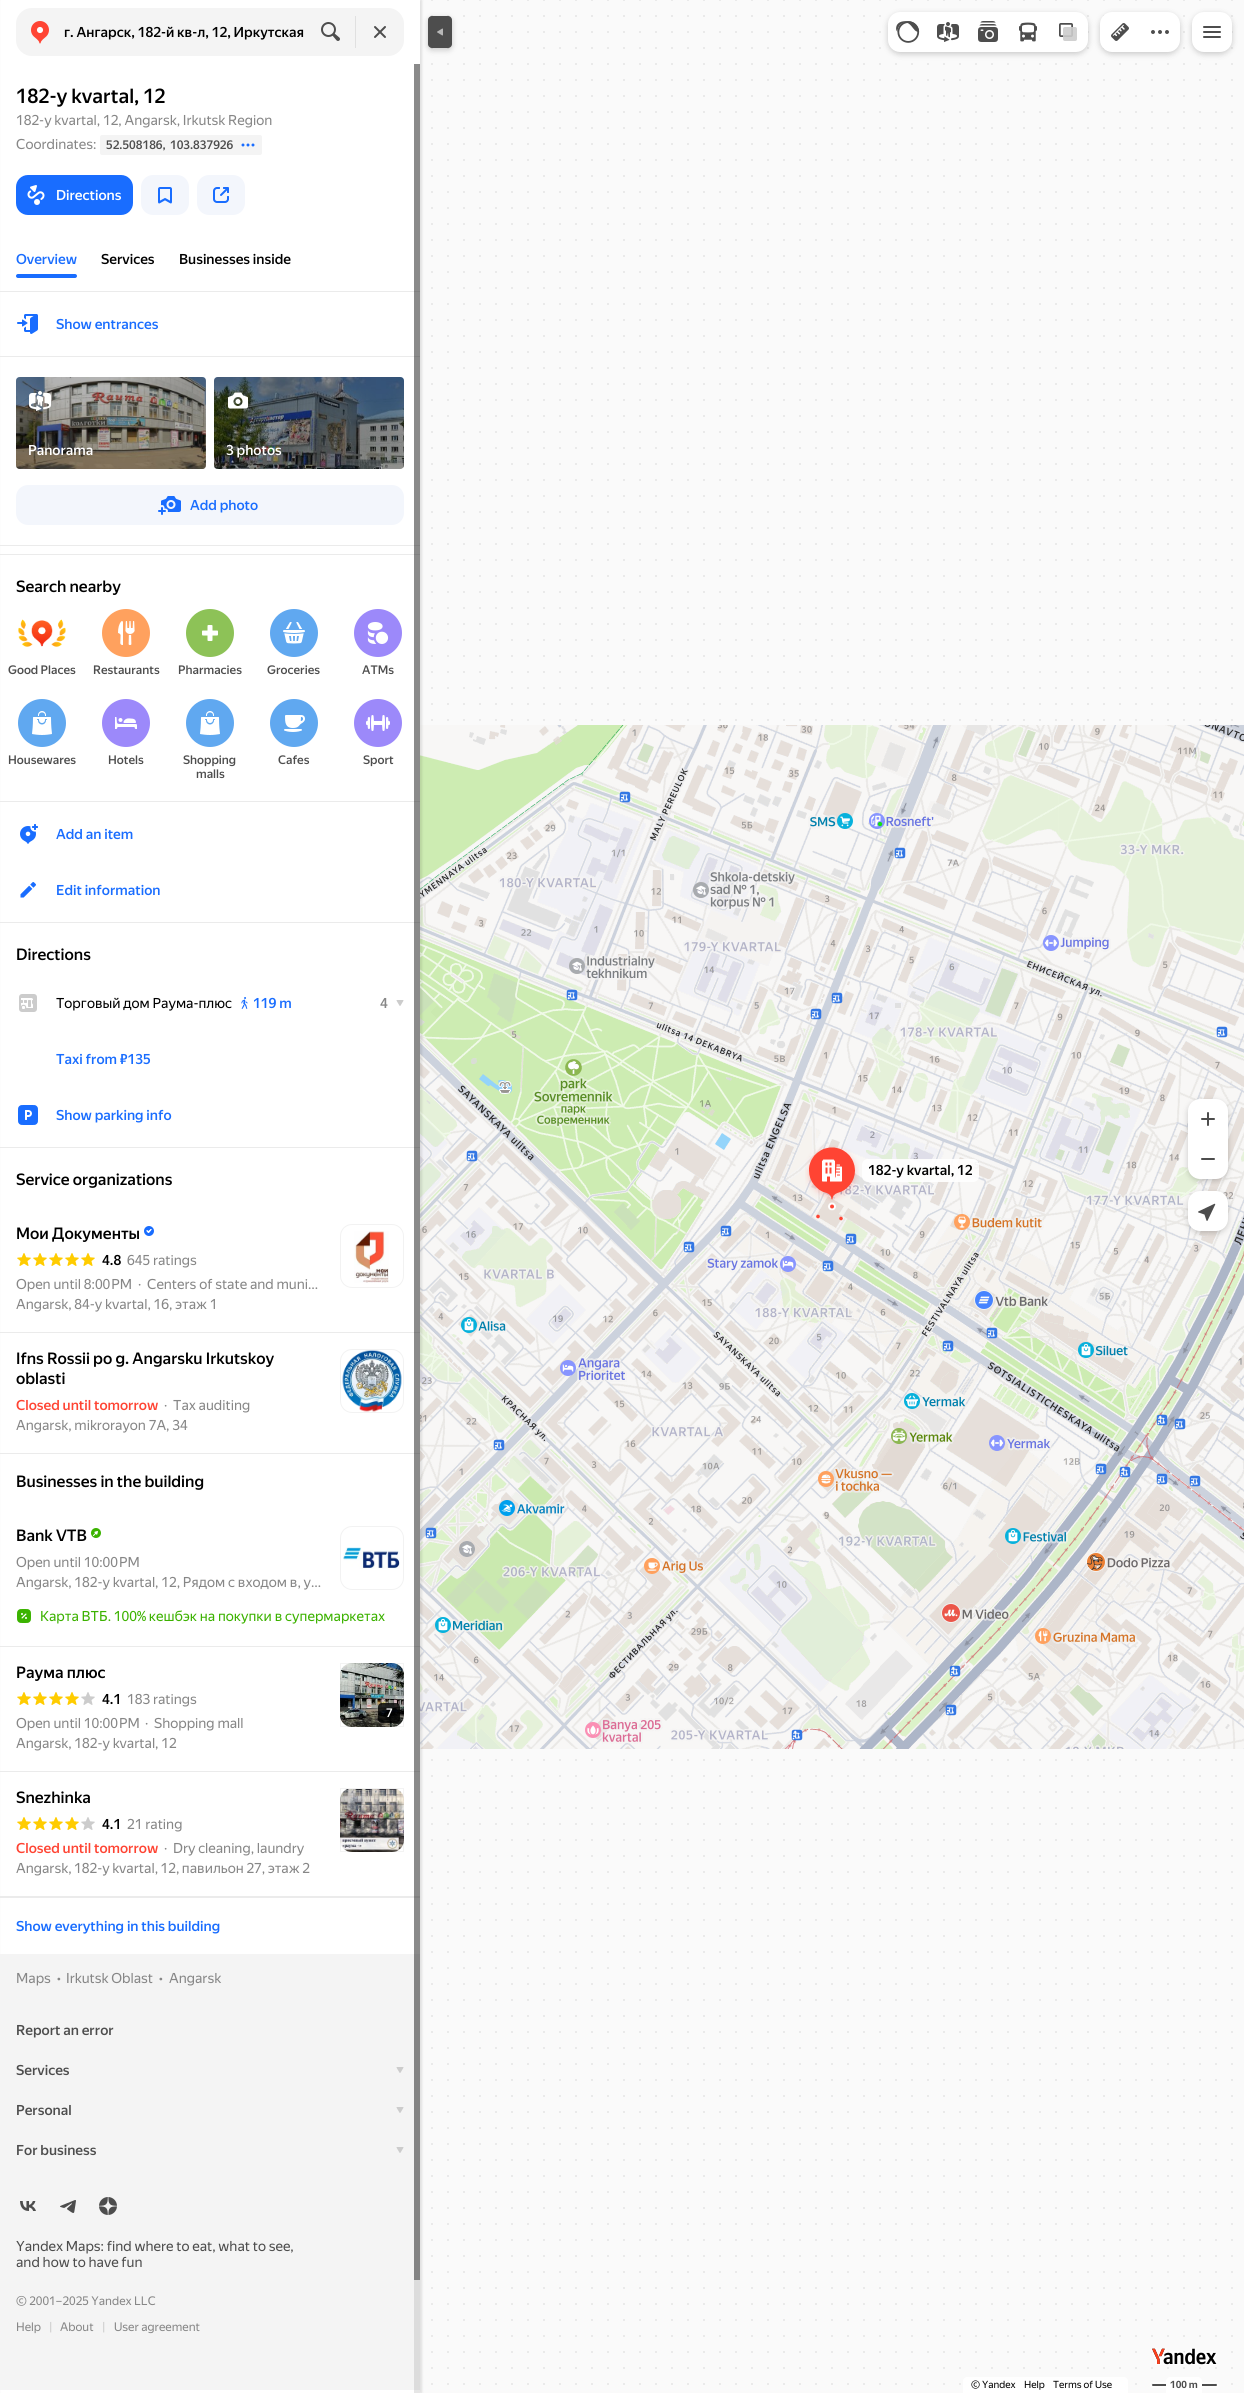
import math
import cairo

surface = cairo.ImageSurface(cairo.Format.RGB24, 1244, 2393)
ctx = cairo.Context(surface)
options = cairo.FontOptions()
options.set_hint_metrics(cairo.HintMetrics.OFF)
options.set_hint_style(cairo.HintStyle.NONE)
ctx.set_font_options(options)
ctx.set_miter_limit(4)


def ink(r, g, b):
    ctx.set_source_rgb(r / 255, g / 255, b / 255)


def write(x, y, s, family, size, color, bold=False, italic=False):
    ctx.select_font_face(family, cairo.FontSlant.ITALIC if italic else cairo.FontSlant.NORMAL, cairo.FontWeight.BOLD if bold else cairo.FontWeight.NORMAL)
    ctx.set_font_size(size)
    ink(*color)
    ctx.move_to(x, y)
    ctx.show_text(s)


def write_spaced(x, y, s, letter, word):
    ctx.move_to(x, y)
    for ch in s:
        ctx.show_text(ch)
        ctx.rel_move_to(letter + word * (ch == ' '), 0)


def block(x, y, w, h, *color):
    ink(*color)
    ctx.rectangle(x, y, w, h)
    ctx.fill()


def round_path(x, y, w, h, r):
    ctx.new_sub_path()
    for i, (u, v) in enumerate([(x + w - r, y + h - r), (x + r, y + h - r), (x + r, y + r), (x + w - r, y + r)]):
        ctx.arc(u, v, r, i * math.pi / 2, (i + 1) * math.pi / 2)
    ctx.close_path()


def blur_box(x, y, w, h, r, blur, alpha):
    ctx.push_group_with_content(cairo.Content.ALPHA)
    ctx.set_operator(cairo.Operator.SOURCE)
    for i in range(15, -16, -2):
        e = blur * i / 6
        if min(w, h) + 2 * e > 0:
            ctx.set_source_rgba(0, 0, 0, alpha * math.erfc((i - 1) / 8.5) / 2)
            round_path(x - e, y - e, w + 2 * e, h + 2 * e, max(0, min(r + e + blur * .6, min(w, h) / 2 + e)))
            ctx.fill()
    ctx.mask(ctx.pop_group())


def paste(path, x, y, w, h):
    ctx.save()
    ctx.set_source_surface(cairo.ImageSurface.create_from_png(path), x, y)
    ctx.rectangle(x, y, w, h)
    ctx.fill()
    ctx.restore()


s1 = dict(family="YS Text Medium", size=14, color=(0, 0, 0))
s2 = dict(family="YS Text Medium", size=20, color=(0, 0, 0))
s3 = dict(family="YS Text", size=14, color=(135, 135, 135))
s4 = dict(family="YS Text Medium", size=14, color=(255, 255, 255))
s5 = dict(family="YS Text Medium", size=14, color=(25, 109, 255))
s6 = dict(family="YS Text Medium", size=16, color=(0, 0, 0))
s7 = dict(family="YS Text Medium", size=12, color=(77, 77, 77))
s8 = dict(family="YS Text", size=14, color=(0, 0, 0))
s9 = dict(family="YS Text Medium", size=14, color=(135, 135, 135))
s10 = dict(family="YS Text Medium", size=14, color=(255, 68, 51))
s11 = dict(family="YS Text", size=14, color=(60, 178, 0))
s12 = dict(family="YS Text Medium", size=12, color=(255, 255, 255))
s13 = dict(family="YS Text Medium", size=14, color=(77, 77, 77))
s14 = dict(family="YS Text", size=14, color=(77, 77, 77))
s15 = dict(family="YS Text", size=12, color=(135, 135, 135))
s16 = dict(family="YS Text", size=12, color=(204, 204, 204))
s17 = dict(family="YS Text", size=10, color=(0, 0, 0))
s18 = dict(family="YS Text", size=10, color=(77, 77, 77), bold=True)

ink(255, 255, 255)
ctx.paint()
paste("pic1.png", 420, 0, 824, 2393)
paste("pic57.png", 420, 725, 126, 256)
paste("pic61.png", 420, 981, 126, 256)
paste("pic65.png", 420, 1237, 126, 256)
paste("pic69.png", 420, 1493, 126, 256)
ink(0, 0, 0)
blur_box(2, 0, 420, 2393, 0, 1, 0.1)
blur_box(428, 18, 24, 32, 4, 3, 0.2)
block(1, 0, 419, 2393, 255, 255, 255)
ink(244, 244, 244)
round_path(16, 8, 388, 48, 16)
ctx.fill()
paste("pic2.png", 31, 21, 18, 23)
write(64, 37, "г. Ангарск, 182-й кв-л, 12, Иркутская", **s1)
paste("pic3.png", 321, 22, 19, 19)
block(355, 16, 1, 32, 224, 224, 224)
paste("pic4.png", 374, 26, 12, 12)
ink(0, 0, 0)
blur_box(888, 14, 200, 40, 12, 3, 0.2)
ink(255, 255, 255)
ctx.new_path()
ctx.move_to(900, 12)
ctx.line_to(928, 12)
ctx.line_to(928, 52)
ctx.line_to(900, 52)
ctx.curve_to(893.5, 52, 888, 46.5, 888, 40)
ctx.line_to(888, 24)
ctx.curve_to(888, 17.5, 893.5, 12, 900, 12)
ctx.close_path()
ctx.fill()
paste("pic5.png", 896, 21, 24, 22)
block(928, 12, 120, 40, 255, 255, 255)
paste("pic6.png", 937, 22, 22, 20)
ctx.new_path()
ctx.move_to(1048, 12)
ctx.line_to(1076, 12)
ctx.curve_to(1082.5, 12, 1088, 17.5, 1088, 24)
ctx.line_to(1088, 40)
ctx.curve_to(1088, 46.5, 1082.5, 52, 1076, 52)
ctx.line_to(1048, 52)
ctx.close_path()
ctx.fill()
paste("pic7.png", 1059, 23, 18, 18)
paste("pic8.png", 978, 21, 20, 21)
paste("pic9.png", 1019, 22, 18, 20)
ink(0, 0, 0)
blur_box(1100, 14, 80, 40, 12, 3, 0.2)
ink(255, 255, 255)
ctx.new_path()
ctx.move_to(1112, 12)
ctx.line_to(1140, 12)
ctx.line_to(1140, 52)
ctx.line_to(1112, 52)
ctx.curve_to(1105.5, 52, 1100, 46.5, 1100, 40)
ctx.line_to(1100, 24)
ctx.curve_to(1100, 17.5, 1105.5, 12, 1112, 12)
ctx.close_path()
ctx.fill()
paste("pic10.png", 1111, 23, 18, 18)
ctx.new_path()
ctx.move_to(1140, 12)
ctx.line_to(1168, 12)
ctx.curve_to(1174.5, 12, 1180, 17.5, 1180, 24)
ctx.line_to(1180, 40)
ctx.curve_to(1180, 46.5, 1174.5, 52, 1168, 52)
ctx.line_to(1140, 52)
ctx.close_path()
ctx.fill()
paste("pic11.png", 1151, 30, 18, 4)
ink(0, 0, 0)
blur_box(1192, 14, 40, 40, 12, 3, 0.2)
ink(255, 255, 255)
round_path(1192, 12, 40, 40, 12)
ctx.fill()
paste("pic12.png", 1203, 26, 18, 12)
paste("pic64.png", 1058, 981, 186, 256)
ink(0, 0, 0)
blur_box(1188, 1101, 40, 80, 12, 3, 0.2)
ink(255, 255, 255)
ctx.new_path()
ctx.move_to(1200, 1099)
ctx.line_to(1216, 1099)
ctx.curve_to(1222.5, 1099, 1228, 1104.5, 1228, 1111)
ctx.line_to(1228, 1139)
ctx.line_to(1188, 1139)
ctx.line_to(1188, 1111)
ctx.curve_to(1188, 1104.5, 1193.5, 1099, 1200, 1099)
ctx.close_path()
ctx.fill()
paste("pic13.png", 1201, 1112, 14, 14)
ctx.new_path()
ctx.move_to(1188, 1139)
ctx.line_to(1228, 1139)
ctx.line_to(1228, 1167)
ctx.curve_to(1228, 1173.5, 1222.5, 1179, 1216, 1179)
ctx.line_to(1200, 1179)
ctx.curve_to(1193.5, 1179, 1188, 1173.5, 1188, 1167)
ctx.close_path()
ctx.fill()
paste("pic14.png", 1201, 1158, 14, 2)
paste("pic68.png", 1058, 1237, 186, 256)
ink(0, 0, 0)
blur_box(1188, 1193, 40, 40, 12, 3, 0.2)
ink(255, 255, 255)
round_path(1188, 1191, 40, 40, 12)
ctx.fill()
paste("pic15.png", 1198, 1203, 18, 18)
ink(77, 77, 77)
round_path(428, 16, 24, 32, 4)
ctx.fill()
paste("pic16.png", 437, 28, 6, 8)
write(16, 103, "182-y kvartal, 12", **s2)
write(16, 125, "182-y kvartal, 12, Angarsk, Irkutsk Region", **s3)
write(16, 149, "Coordinates:", **s3)
ink(244, 244, 244)
round_path(100, 135, 162, 20, 2)
ctx.fill()
ctx.select_font_face("YS Text Medium")
ctx.set_font_size(12)
ink(77, 77, 77)
write_spaced(106, 149, "52.508186,", 0, -1)
write_spaced(170, 149, "103.837926", 0, -1)
paste("pic17.png", 241, 143, 14, 4)
ink(25, 109, 255)
round_path(16, 175, 117, 40, 12)
ctx.fill()
paste("pic18.png", 27, 185, 18, 20)
write(56, 200, "Directions", **s4)
ink(243, 246, 252)
round_path(141, 175, 48, 40, 12)
ctx.fill()
paste("pic19.png", 158, 187, 14, 17)
round_path(197, 175, 48, 40, 12)
ctx.fill()
paste("pic20.png", 213, 187, 16, 16)
write(16, 264, "Overview", **s5)
write(101, 264, "Services", **s1)
write(179, 264, "Businesses inside", **s1)
ink(25, 109, 255)
round_path(16, 274, 61, 4, 2)
ctx.fill()
block(0, 291, 420, 1, 235, 235, 235)
block(0, 356, 420, 1, 235, 235, 235)
paste("pic21.png", 17, 314, 21, 20)
write(56, 329, "Show entrances", **s5)
block(0, 545, 420, 1, 235, 235, 235)
paste("pic22.png", 16, 377, 190, 92)
ctx.set_source_rgba(0, 0, 0, 0.3)
round_path(16, 377, 190, 92, 4)
ctx.fill()
paste("pic23.png", 29, 391, 22, 20)
write(28, 455, "Panorama", **s4)
paste("pic24.png", 214, 377, 190, 92)
ctx.set_source_rgba(0, 0, 0, 0.3)
round_path(214, 377, 190, 92, 4)
ctx.fill()
paste("pic25.png", 228, 392, 20, 17)
write(226, 455, "3 photos", **s4)
ink(243, 246, 252)
round_path(16, 485, 388, 40, 12)
ctx.fill()
paste("pic26.png", 158, 496, 23, 19)
write(190, 510, "Add photo", **s5)
block(0, 554, 420, 1, 235, 235, 235)
block(0, 801, 420, 1, 235, 235, 235)
write(16, 592, "Search nearby", **s6)
paste("pic27.png", 18, 619, 48, 28)
write(8, 674, "Good Places", **s7)
ink(255, 161, 94)
ctx.new_path()
ctx.arc(126, 633, 24, 0, 2 * math.pi)
ctx.fill()
paste("pic28.png", 118, 621, 17, 24)
write(93, 674, "Restaurants", **s7)
ink(141, 194, 87)
ctx.new_path()
ctx.arc(210, 633, 24, 0, 2 * math.pi)
ctx.fill()
paste("pic29.png", 202, 625, 16, 16)
write(178, 674, "Pharmacies", **s7)
ink(96, 168, 240)
ctx.new_path()
ctx.arc(294, 633, 24, 0, 2 * math.pi)
ctx.fill()
paste("pic30.png", 283, 622, 22, 22)
write(267, 674, "Groceries", **s7)
ink(156, 137, 250)
ctx.new_path()
ctx.arc(378, 633, 24, 0, 2 * math.pi)
ctx.fill()
paste("pic31.png", 367, 622, 22, 22)
write(362, 674, "ATMs", **s7)
ink(96, 168, 240)
ctx.new_path()
ctx.arc(42, 723, 24, 0, 2 * math.pi)
ctx.fill()
paste("pic32.png", 32, 711, 20, 24)
write(8, 764, "Housewares", **s7)
ink(156, 137, 250)
ctx.new_path()
ctx.arc(126, 723, 24, 0, 2 * math.pi)
ctx.fill()
paste("pic33.png", 115, 717, 22, 12)
write(108, 764, "Hotels", **s7)
ink(96, 168, 240)
ctx.new_path()
ctx.arc(210, 723, 24, 0, 2 * math.pi)
ctx.fill()
paste("pic32.png", 200, 711, 20, 24)
write(183, 764, "Shopping", **s7)
write(196, 778, "malls", **s7)
ink(96, 168, 240)
ctx.new_path()
ctx.arc(294, 723, 24, 0, 2 * math.pi)
ctx.fill()
paste("pic34.png", 284, 715, 21, 17)
write(278, 764, "Cafes", **s7)
ink(156, 137, 250)
ctx.new_path()
ctx.arc(378, 723, 24, 0, 2 * math.pi)
ctx.fill()
paste("pic35.png", 366, 715, 24, 16)
write(363, 764, "Sport", **s7)
block(0, 922, 420, 1, 235, 235, 235)
paste("pic36.png", 20, 824, 18, 20)
write(56, 839, "Add an item", **s5)
paste("pic37.png", 20, 882, 16, 16)
write(56, 895, "Edit information", **s5)
block(0, 1147, 420, 1, 235, 235, 235)
write(16, 960, "Directions", **s6)
paste("pic38.png", 19, 994, 18, 18)
write(56, 1008, "Торговый дом Раума-плюс", **s8)
paste("pic39.png", 241, 997, 7, 12)
write(253, 1008, "119 m", **s5)
write(380, 1008, "4", **s9)
paste("pic40.png", 396, 1000, 8, 6)
write(56, 1064, "Taxi from ₽135", **s5)
paste("pic41.png", 18, 1105, 20, 20)
write(56, 1120, "Show parking info", **s5)
write(16, 1185, "Service organizations", **s6)
block(0, 1332, 420, 1, 235, 235, 235)
write(16, 1239, "Мои Документы", **s6)
paste("pic42.png", 144, 1226, 10, 10)
paste("pic43.png", 354, 1231, 35, 52)
round_path(340.5, 1224.5, 63, 63, 11.5)
ink(242, 242, 242)
ctx.set_line_width(1)
ctx.stroke()
paste("pic44.png", 17, 1253, 14, 13)
paste("pic44.png", 33, 1253, 14, 13)
paste("pic44.png", 49, 1253, 14, 13)
paste("pic44.png", 65, 1253, 14, 13)
paste("pic44.png", 81, 1253, 14, 13)
write(102, 1265, "4.8", **s1)
write(127, 1265, "645 ratings", **s3)
write(16, 1289, "Open until 8:00 PM", **s3)
write(138, 1289, "·", **s3)
write(147, 1289, "Centers of state and muni…", **s3)
write(16, 1309, "Angarsk, 84-y kvartal, 16, этаж 1", **s3)
block(0, 1453, 420, 1, 235, 235, 235)
write(16, 1364, "Ifns Rossii po g. Angarsku Irkutskoy", **s6)
write(16, 1384, "oblasti", **s6)
paste("pic45.png", 342, 1350, 60, 62)
round_path(340.5, 1349.5, 63, 63, 11.5)
ink(242, 242, 242)
ctx.stroke()
write(16, 1410, "Closed until tomorrow", **s10)
write(164, 1410, "·", **s3)
write(173, 1410, "Tax auditing", **s3)
write(16, 1430, "Angarsk, mikrorayon 7A, 34", **s3)
write(16, 1487, "Businesses in the building", **s6)
block(0, 1646, 420, 1, 235, 235, 235)
write(16, 1541, "Bank VTB", **s6)
paste("pic46.png", 91, 1528, 10, 10)
paste("pic47.png", 343, 1547, 57, 22)
round_path(340.5, 1526.5, 63, 63, 11.5)
ink(242, 242, 242)
ctx.stroke()
write(16, 1567, "Open until 10:00 PM", **s3)
write(16, 1587, "Angarsk, 182-y kvartal, 12, Рядом с входом в, у…", **s3)
paste("pic48.png", 17, 1609, 14, 14)
write(40, 1621, "Карта ВТБ. 100% кешбэк на покупки в супермаркетах", **s11)
block(0, 1771, 420, 1, 235, 235, 235)
write(16, 1678, "Раума плюс", **s6)
paste("pic44.png", 17, 1692, 14, 13)
paste("pic44.png", 33, 1692, 14, 13)
paste("pic44.png", 49, 1692, 14, 13)
paste("pic44.png", 65, 1692, 14, 13)
paste("pic49.png", 81, 1692, 14, 13)
write(102, 1704, "4.1", **s1)
write(127, 1704, "183 ratings", **s3)
paste("pic50.png", 340, 1663, 64, 64)
ctx.rectangle(340.5, 1663.5, 63, 63)
ctx.set_source_rgba(0, 0, 0, 0.05)
ctx.stroke()
ctx.set_source_rgba(0, 0, 0, 0.8)
round_path(378, 1703, 22, 20, 4)
ctx.fill()
write(386, 1717, "7", **s12)
write(16, 1728, "Open until 10:00 PM", **s3)
write(145, 1728, "·", **s3)
write(154, 1728, "Shopping mall", **s3)
write(16, 1748, "Angarsk, 182-y kvartal, 12", **s3)
block(0, 1896, 420, 2, 235, 235, 235)
write(16, 1803, "Snezhinka", **s6)
paste("pic51.png", 340, 1789, 64, 63)
ctx.rectangle(340.5, 1788.5, 63, 63)
ctx.set_source_rgba(0, 0, 0, 0.05)
ctx.stroke()
paste("pic44.png", 17, 1817, 14, 13)
paste("pic44.png", 33, 1817, 14, 13)
paste("pic44.png", 49, 1817, 14, 13)
paste("pic44.png", 65, 1817, 14, 13)
paste("pic49.png", 81, 1817, 14, 13)
write(102, 1829, "4.1", **s1)
write(127, 1829, "21 rating", **s3)
write(16, 1853, "Closed until tomorrow", **s10)
write(164, 1853, "·", **s3)
write(173, 1853, "Dry cleaning, laundry", **s3)
write_spaced(16, 1873, "Angarsk, 182-y kvartal, 12, павильон 27, этаж 2", 0, -0.25)
write(16, 1931, "Show everything in this building", **s5)
block(0, 1954, 420, 436, 244, 244, 244)
write(16, 1983, "Maps", **s3)
write(57, 1983, "•", **s3)
write(66, 1983, "Irkutsk Oblast", **s3)
write(159, 1983, "•", **s3)
write(169, 1983, "Angarsk", **s3)
write(16, 2035, "Report an error", **s13)
write(16, 2075, "Services", **s13)
paste("pic52.png", 396, 2067, 8, 6)
write(16, 2115, "Personal", **s13)
paste("pic52.png", 396, 2107, 8, 6)
write(16, 2155, "For business", **s13)
paste("pic52.png", 396, 2147, 8, 6)
paste("pic53.png", 20, 2201, 16, 10)
paste("pic54.png", 60, 2200, 16, 13)
paste("pic55.png", 99, 2197, 18, 18)
write(16, 2251, "Yandex Maps: find where to eat, what to see,", **s14)
write(16, 2267, "and how to have fun", **s14)
write(16, 2305, "© 2001–2025 Yandex LLC", **s15)
write(16, 2331, "Help", **s15)
write(49, 2331, "|", **s16)
write(60, 2331, "About", **s15)
write(102, 2331, "|", **s16)
write(114, 2331, "User agreement", **s15)
ctx.set_source_rgba(0, 0, 0, 0.1)
ctx.rectangle(414, 64, 6, 2329)
ctx.fill()
ctx.set_source_rgba(0, 0, 0, 0.4)
ctx.rectangle(414, 64, 6, 2216)
ctx.fill()
paste("pic56.png", 1151, 2348, 66, 17)
ink(255, 255, 255)
ctx.new_path()
ctx.move_to(967, 2377)
ctx.line_to(1124, 2377)
ctx.curve_to(1126, 2377, 1128, 2379, 1128, 2381)
ctx.line_to(1128, 2393)
ctx.line_to(963, 2393)
ctx.line_to(963, 2381)
ctx.curve_to(963, 2379, 965, 2377, 967, 2377)
ctx.close_path()
ctx.fill()
write(971, 2388, "© Yandex", **s17)
write(1024, 2388, "Help", **s17)
write(1053, 2388, "Terms of Use", **s17)
ctx.set_source_rgba(1, 1, 1, 0.6)
round_path(1150, 2382, 69, 6, 3)
ctx.fill()
ink(77, 77, 77)
round_path(1152, 2384, 65, 2, 1)
ctx.fill()
ink(255, 255, 255)
ctx.new_path()
ctx.move_to(1170, 2377)
ctx.line_to(1198, 2377)
ctx.curve_to(1200, 2377, 1202, 2379, 1202, 2381)
ctx.line_to(1202, 2393)
ctx.line_to(1166, 2393)
ctx.line_to(1166, 2381)
ctx.curve_to(1166, 2379, 1168, 2377, 1170, 2377)
ctx.close_path()
ctx.fill()
write(1170, 2388, "100 m", **s18)
paste("pic58.png", 546, 725, 256, 256)
paste("pic59.png", 802, 725, 256, 256)
paste("pic60.png", 1058, 725, 186, 256)
paste("pic62.png", 546, 981, 256, 256)
paste("pic63.png", 802, 981, 256, 256)
paste("pic66.png", 546, 1237, 256, 256)
paste("pic67.png", 802, 1237, 256, 256)
paste("pic70.png", 546, 1493, 256, 256)
paste("pic71.png", 802, 1493, 256, 256)
paste("pic72.png", 1058, 1493, 186, 256)
paste("pic73.png", 805, 1145, 54, 66)
paste("pic74.png", 822, 1159, 20, 23)
ctx.set_source_rgba(1, 1, 1, 0.9)
round_path(862, 1159, 117, 23, 6)
ctx.fill()
write(868, 1175, "182-y kvartal, 12", **s1)
ink(255, 68, 51)
ctx.new_path()
ctx.move_to(817, 1218)
ctx.curve_to(815, 1217, 817, 1213.5, 819, 1215)
ctx.curve_to(821, 1216, 819, 1219.5, 817, 1218)
ctx.close_path()
ctx.move_to(842.5, 1219.5)
ctx.curve_to(841.5, 1221.5, 838, 1219.5, 839.5, 1217.5)
ctx.curve_to(840.5, 1215.5, 844, 1217.5, 842.5, 1219.5)
ctx.close_path()
ctx.fill()
surface.write_to_png("screenshot.png")
